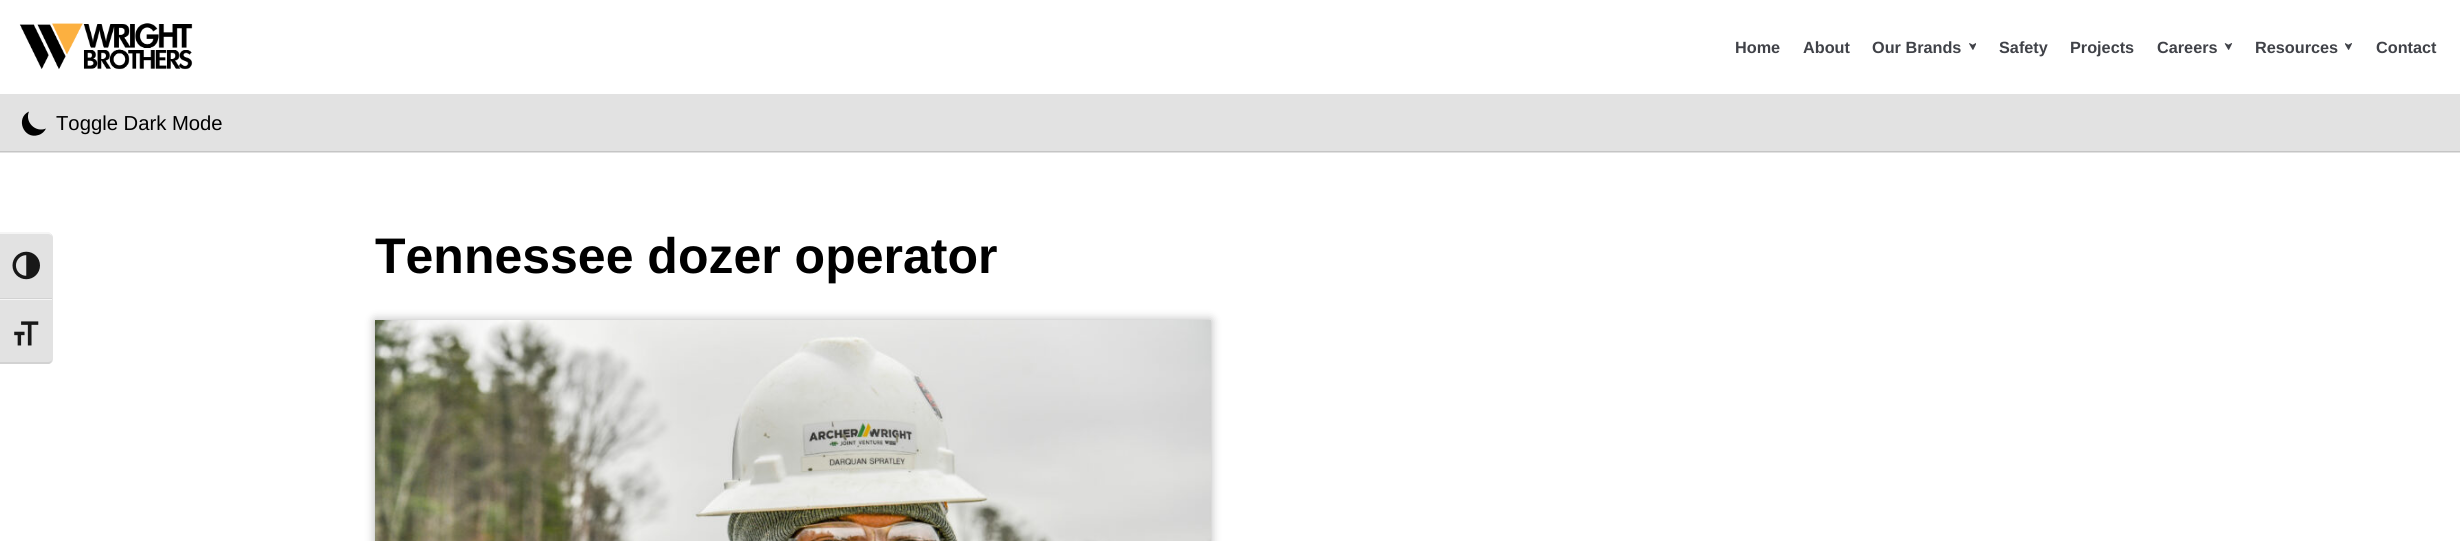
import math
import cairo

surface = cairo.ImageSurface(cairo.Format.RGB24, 2460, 541)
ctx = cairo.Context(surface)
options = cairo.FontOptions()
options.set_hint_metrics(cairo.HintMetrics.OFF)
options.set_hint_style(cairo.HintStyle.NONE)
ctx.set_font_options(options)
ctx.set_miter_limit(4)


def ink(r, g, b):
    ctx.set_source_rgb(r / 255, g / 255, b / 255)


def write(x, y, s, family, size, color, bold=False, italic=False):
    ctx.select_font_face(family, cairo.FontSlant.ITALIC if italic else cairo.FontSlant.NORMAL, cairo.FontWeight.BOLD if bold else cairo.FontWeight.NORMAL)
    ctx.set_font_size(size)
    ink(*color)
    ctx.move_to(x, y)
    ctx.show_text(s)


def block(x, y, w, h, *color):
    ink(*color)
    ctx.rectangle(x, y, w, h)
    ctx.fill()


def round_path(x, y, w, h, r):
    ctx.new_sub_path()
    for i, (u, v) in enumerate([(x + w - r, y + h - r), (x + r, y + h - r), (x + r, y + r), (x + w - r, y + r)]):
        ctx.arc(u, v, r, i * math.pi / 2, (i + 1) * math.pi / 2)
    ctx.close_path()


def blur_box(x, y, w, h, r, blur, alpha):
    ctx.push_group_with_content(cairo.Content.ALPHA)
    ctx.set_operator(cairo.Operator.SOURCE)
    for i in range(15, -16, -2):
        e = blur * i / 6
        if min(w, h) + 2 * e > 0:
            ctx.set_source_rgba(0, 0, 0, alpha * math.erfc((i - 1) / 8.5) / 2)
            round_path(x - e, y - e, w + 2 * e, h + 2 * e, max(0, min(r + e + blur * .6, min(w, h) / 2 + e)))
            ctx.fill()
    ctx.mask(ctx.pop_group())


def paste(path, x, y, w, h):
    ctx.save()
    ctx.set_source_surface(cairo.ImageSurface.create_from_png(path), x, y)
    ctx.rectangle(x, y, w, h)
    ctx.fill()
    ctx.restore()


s1 = dict(family="Liberation Sans", size=16.25, color=(64, 66, 72), bold=True)
s2 = dict(family="Liberation Sans", size=20.25, color=(0, 0, 0))
s3 = dict(family="Liberation Sans", size=50, color=(0, 0, 0), bold=True)

ink(255, 255, 255)
ctx.paint()
paste("pic1.png", 19, 23, 174, 47)
write(1735, 53, "Home", **s1)
write(1803, 53, "About", **s1)
write(1872, 53, "Our Brands", **s1)
paste("pic2.png", 1969, 43, 7, 7)
write(1999, 53, "Safety", **s1)
write(2070, 53, "Projects", **s1)
write(2157, 53, "Careers", **s1)
paste("pic3.png", 2224, 43, 9, 7)
write(2255, 53, "Resources", **s1)
paste("pic4.png", 2345, 43, 7, 7)
write(2376, 53, "Contact", **s1)
block(0, 94, 2460, 59, 226, 226, 226)
block(0, 151, 2460, 1, 197, 197, 197)
ink(0, 0, 0)
ctx.new_path()
ctx.move_to(46, 128.5)
ctx.curve_to(35.5, 133, 24.5, 122, 29, 111.5)
ctx.curve_to(15, 118, 23.5, 140, 38.5, 135)
ctx.curve_to(42, 134, 44.5, 131.5, 46, 128.5)
ctx.close_path()
ctx.fill()
write(56, 130, "Toggle Dark Mode", **s2)
write(375, 273, "Tennessee dozer operator", **s3)
ink(0, 0, 0)
blur_box(375, 320, 836, 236, 0, 5, 0.3)
paste("pic5.png", 375, 320, 836, 221)
ink(226, 226, 226)
ctx.new_path()
ctx.move_to(0, 233)
ctx.line_to(48, 233)
ctx.curve_to(51, 233, 53, 235, 53, 238)
ctx.line_to(53, 299)
ctx.line_to(0, 299)
ctx.close_path()
ctx.fill()
ink(245, 245, 245)
ctx.new_path()
ctx.move_to(0, 234)
ctx.line_to(48, 234)
ctx.curve_to(50, 234, 52, 235, 52, 238)
ctx.curve_to(52, 236, 51, 233, 49, 232)
ctx.line_to(0, 232)
ctx.close_path()
ctx.fill()
block(0, 298, 52, 1, 210, 210, 210)
paste("pic6.png", 12, 251, 28, 29)
ink(226, 226, 226)
ctx.new_path()
ctx.move_to(0, 299)
ctx.line_to(53, 299)
ctx.line_to(53, 359)
ctx.curve_to(53, 362, 51, 364, 48, 364)
ctx.line_to(0, 364)
ctx.close_path()
ctx.fill()
block(0, 299, 52, 1, 245, 245, 245)
ink(210, 210, 210)
ctx.new_path()
ctx.move_to(49, 364)
ctx.curve_to(51, 363, 52, 361, 52, 359)
ctx.curve_to(52, 361, 50, 362, 48, 362)
ctx.line_to(0, 362)
ctx.line_to(0, 364)
ctx.close_path()
ctx.fill()
paste("pic7.png", 14, 321, 25, 25)
surface.write_to_png("screenshot.png")
